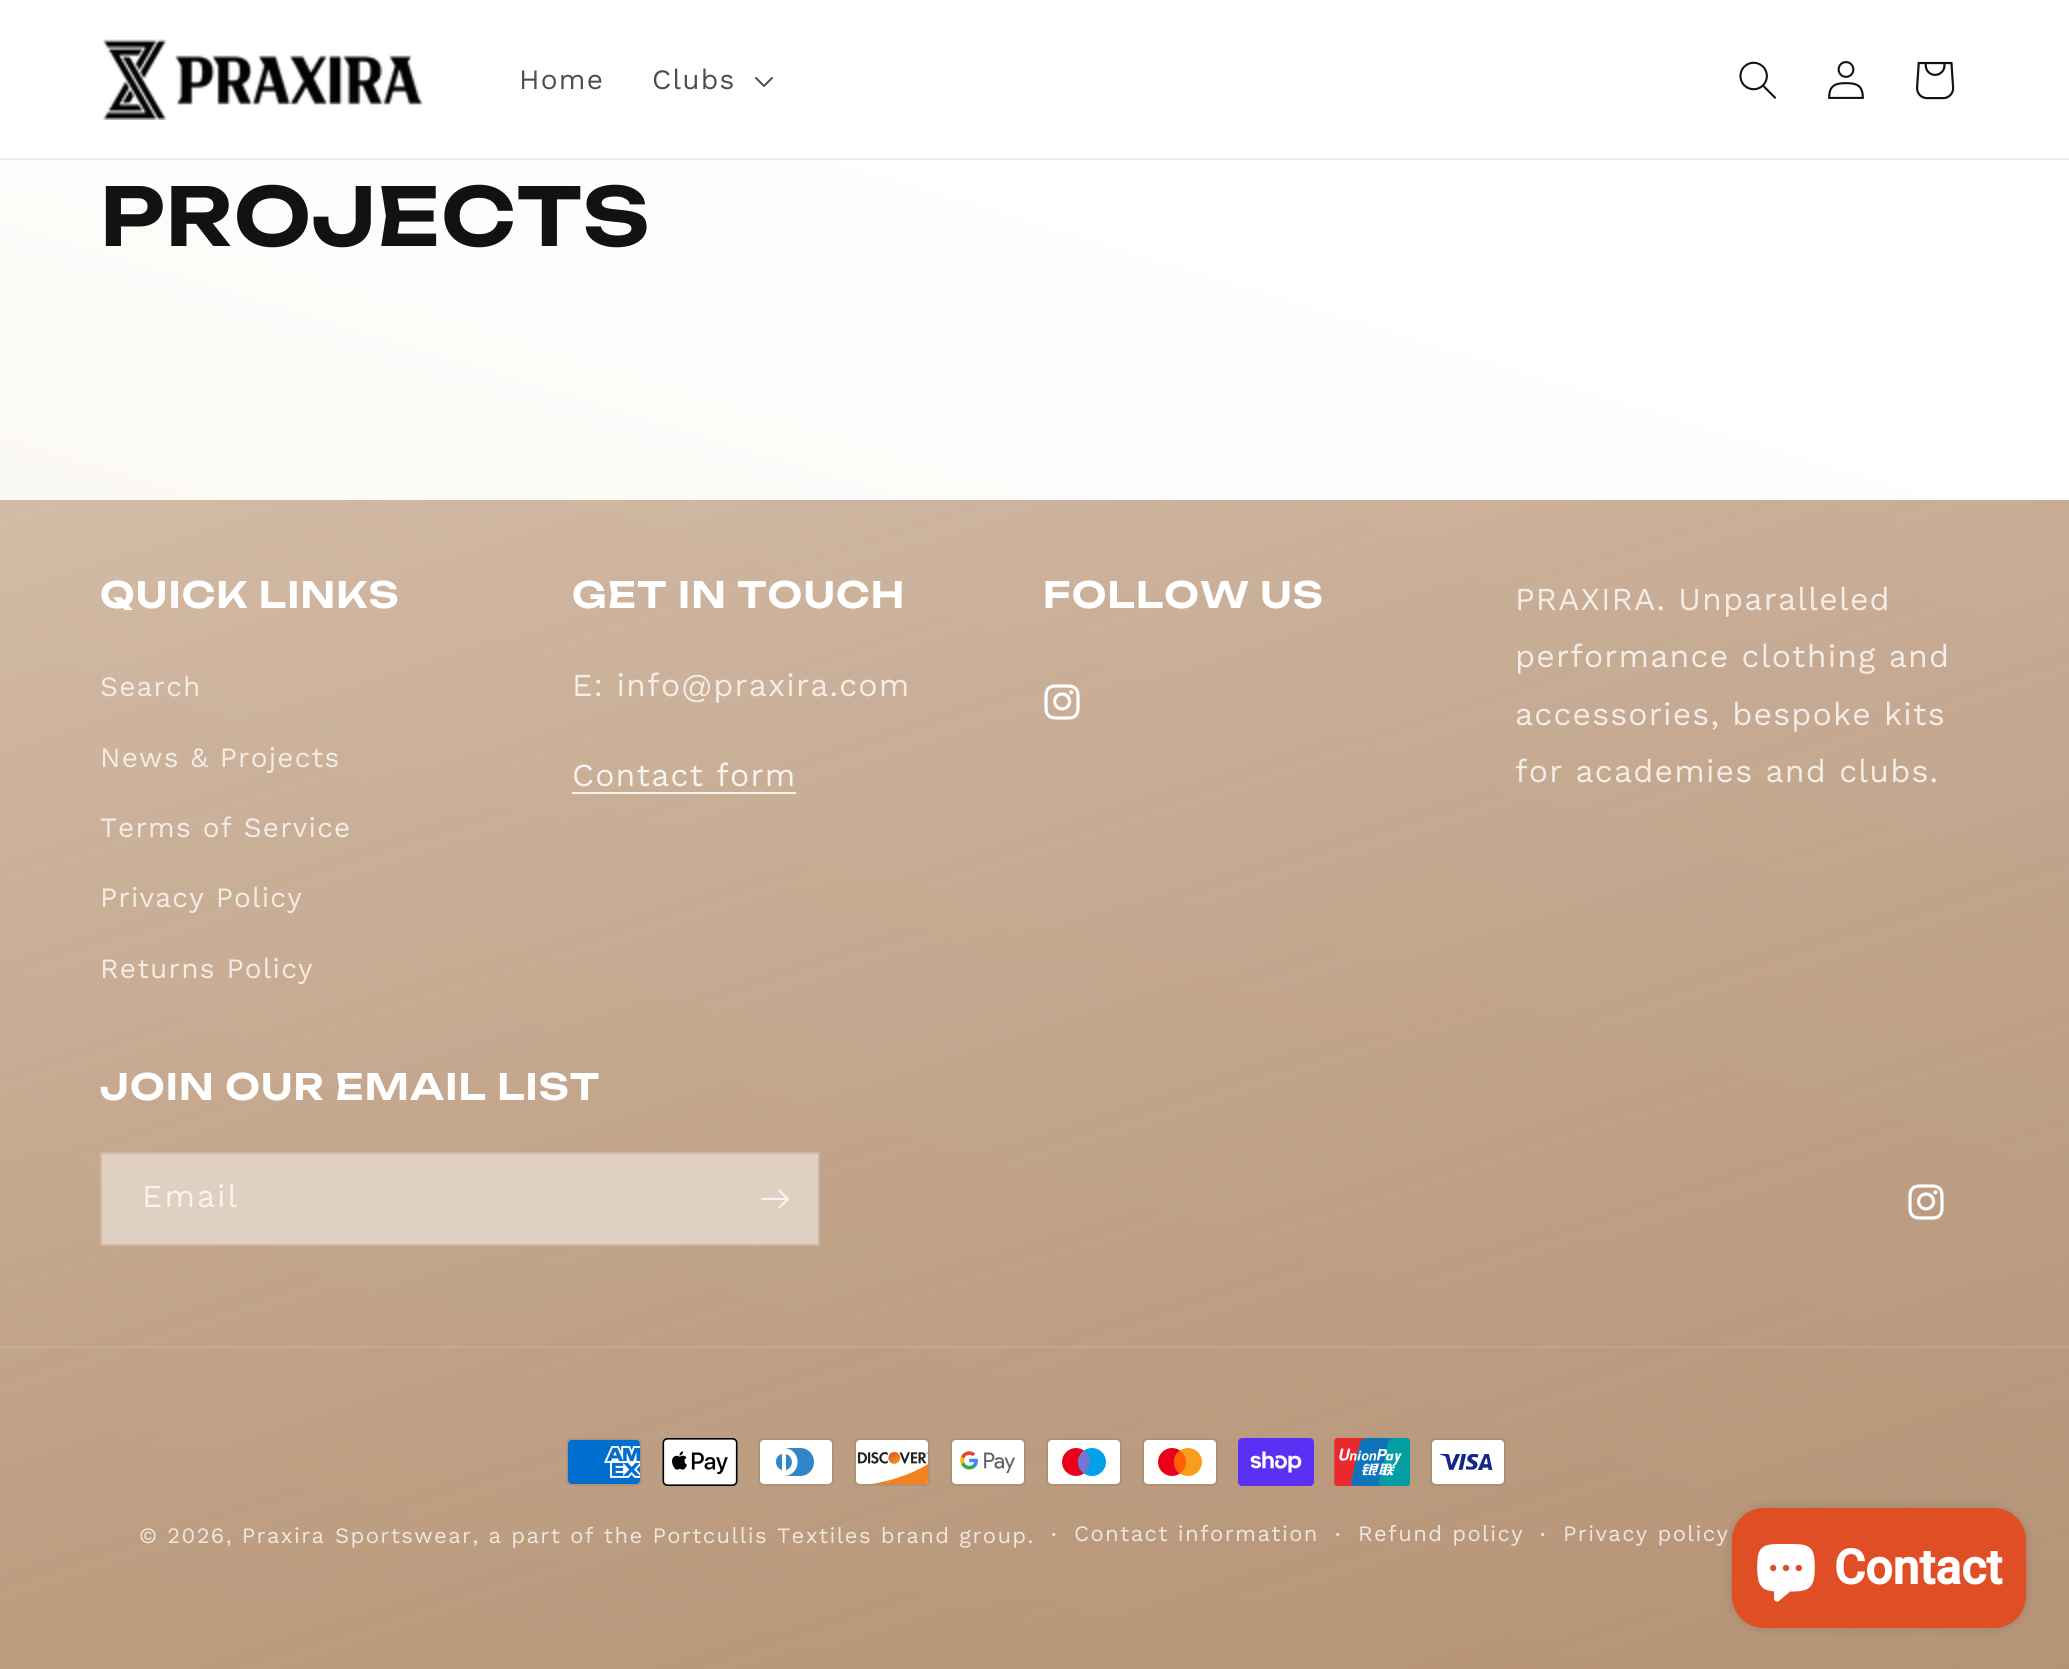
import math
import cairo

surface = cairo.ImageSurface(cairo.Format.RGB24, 2069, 1669)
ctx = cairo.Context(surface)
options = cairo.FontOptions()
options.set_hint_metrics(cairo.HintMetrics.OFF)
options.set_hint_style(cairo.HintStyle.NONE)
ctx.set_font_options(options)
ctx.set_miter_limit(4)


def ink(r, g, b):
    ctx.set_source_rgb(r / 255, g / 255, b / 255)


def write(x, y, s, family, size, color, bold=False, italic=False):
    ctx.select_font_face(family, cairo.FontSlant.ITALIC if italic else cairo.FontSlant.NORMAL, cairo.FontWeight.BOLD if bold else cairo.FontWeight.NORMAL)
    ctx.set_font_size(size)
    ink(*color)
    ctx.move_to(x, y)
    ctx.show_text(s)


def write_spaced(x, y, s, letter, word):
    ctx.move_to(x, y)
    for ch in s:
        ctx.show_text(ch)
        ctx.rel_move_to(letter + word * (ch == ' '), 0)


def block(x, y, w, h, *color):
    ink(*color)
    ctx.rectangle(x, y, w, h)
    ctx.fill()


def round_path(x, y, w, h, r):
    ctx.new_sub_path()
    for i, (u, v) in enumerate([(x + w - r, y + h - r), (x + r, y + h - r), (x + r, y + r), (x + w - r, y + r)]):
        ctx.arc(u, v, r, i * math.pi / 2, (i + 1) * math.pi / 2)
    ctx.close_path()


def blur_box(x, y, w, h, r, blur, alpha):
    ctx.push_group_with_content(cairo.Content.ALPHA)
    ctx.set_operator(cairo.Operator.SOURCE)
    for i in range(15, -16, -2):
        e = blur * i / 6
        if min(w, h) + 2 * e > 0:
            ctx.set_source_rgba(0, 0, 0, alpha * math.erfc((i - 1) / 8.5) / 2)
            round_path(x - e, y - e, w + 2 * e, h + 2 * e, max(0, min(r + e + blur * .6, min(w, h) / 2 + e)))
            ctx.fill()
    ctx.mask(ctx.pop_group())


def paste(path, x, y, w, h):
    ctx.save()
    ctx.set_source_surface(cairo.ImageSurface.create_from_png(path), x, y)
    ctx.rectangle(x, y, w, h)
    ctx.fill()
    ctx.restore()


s1 = dict(family="Roboto", size=48, color=(255, 255, 255), bold=True)

ink(255, 255, 255)
ctx.paint()
gradient = cairo.LinearGradient(713, 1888, 1357, -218)
gradient.add_color_stop_rgba(0.05, 0.961, 0.937, 0.89, 1)
gradient.add_color_stop_rgba(0.79, 1, 1, 1, 1)
gradient.add_color_stop_rgba(0.97, 1, 1, 1, 1)
ctx.set_source(gradient)
ctx.rectangle(0, 160, 2069, 1509)
ctx.fill()
block(0, 158, 2069, 2, 236, 236, 236)
paste("pic1.png", 103, 39, 320, 81)
ctx.select_font_face("Work Sans")
ctx.set_font_size(28)
ink(77, 77, 77)
write_spaced(519, 89, "Home", 1.2, 0)
write_spaced(652, 89, "Clubs", 1.2, 0)
paste("pic2.png", 755, 77, 18, 10)
paste("pic3.png", 1739, 61, 37, 38)
paste("pic4.png", 1828, 61, 36, 38)
paste("pic5.png", 1916, 61, 39, 39)
ctx.select_font_face("Unbounded SemiBold")
ctx.set_font_size(80)
ink(18, 18, 18)
write_spaced(100, 246, "PROJECTS", 1.2, 0)
gradient = cairo.LinearGradient(691, -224, 1379, 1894)
gradient.add_color_stop_rgba(0, 0.831, 0.725, 0.635, 0.74)
gradient.add_color_stop_rgba(1, 0.506, 0.282, 0.102, 0.56)
ctx.set_source(gradient)
ctx.rectangle(0, 500, 2069, 1169)
ctx.fill()
ctx.set_font_size(36)
ink(255, 255, 255)
write_spaced(100, 608, "QUICK LINKS", 1.2, 0)
ctx.select_font_face("Work Sans")
ctx.set_font_size(28)
ink(243, 236, 231)
write_spaced(100, 696, "Search", 1.2, 0)
write_spaced(100, 767, "News & Projects", 1.2, 0)
write_spaced(100, 837, "Terms of Service", 1.2, 0)
write_spaced(100, 907, "Privacy Policy", 1.2, 0)
write_spaced(100, 978, "Returns Policy", 1.2, 0)
ctx.select_font_face("Unbounded SemiBold")
ctx.set_font_size(36)
ink(255, 255, 255)
write_spaced(572, 608, "GET IN TOUCH", 1.2, 0)
ctx.select_font_face("Work Sans")
ctx.set_font_size(32)
ink(243, 236, 231)
write_spaced(572, 696, "E: info@praxira.com", 1.2, 0)
ink(247, 243, 239)
write_spaced(572, 786, "Contact form", 1.2, 0)
ctx.set_source_rgba(1, 1, 1, 0.85)
ctx.rectangle(572, 792, 224, 2)
ctx.fill()
ctx.select_font_face("Unbounded SemiBold")
ctx.set_font_size(36)
ink(255, 255, 255)
write_spaced(1043, 608, "FOLLOW US", 1.2, 0)
paste("pic6.png", 1044, 684, 36, 36)
ctx.select_font_face("Work Sans")
ctx.set_font_size(32)
ink(243, 236, 231)
write_spaced(1515, 610, "PRAXIRA. Unparalleled", 1.2, 0)
write_spaced(1515, 667, "performance clothing and", 1.2, 0)
write_spaced(1515, 725, "accessories, bespoke kits", 1.2, 0)
write_spaced(1515, 782, "for academies and clubs.", 1.2, 0)
ctx.select_font_face("Unbounded SemiBold")
ctx.set_font_size(36)
ink(255, 255, 255)
write_spaced(100, 1100, "JOIN OUR EMAIL LIST", 1.2, 0)
block(102, 1154, 716, 90, 223, 208, 194)
ctx.rectangle(101, 1153, 718, 92)
ctx.set_source_rgba(1, 1, 1, 0.2)
ctx.stroke()
ctx.select_font_face("Work Sans")
ctx.set_font_size(32)
ink(247, 243, 239)
write_spaced(142, 1207, "Email", 2, 0)
paste("pic7.png", 761, 1189, 28, 20)
paste("pic8.png", 1908, 1184, 36, 36)
ctx.set_source_rgba(1, 1, 1, 0.08)
ctx.rectangle(0, 1346, 2069, 2)
ctx.fill()
paste("pic9.png", 566, 1438, 76, 48)
paste("pic10.png", 662, 1438, 76, 48)
paste("pic11.png", 758, 1438, 76, 48)
paste("pic12.png", 854, 1438, 76, 48)
paste("pic13.png", 950, 1438, 76, 48)
paste("pic14.png", 1046, 1438, 76, 48)
paste("pic15.png", 1142, 1438, 76, 48)
paste("pic16.png", 1238, 1438, 76, 48)
paste("pic17.png", 1334, 1438, 76, 48)
paste("pic18.png", 1430, 1438, 76, 48)
ctx.set_font_size(22)
ink(239, 231, 224)
write_spaced(139, 1543, "© 2026, Praxira", 1.4, 0)
write_spaced(335, 1543, "Sportswear, a part of the Portcullis Textiles brand group.", 1.4, 0)
ctx.set_font_size(24)
write_spaced(1051, 1543, "·", 1.4, 0)
ctx.set_font_size(22)
write_spaced(1074, 1541, "Contact information", 1.4, 0)
ctx.set_font_size(24)
write_spaced(1335, 1543, "·", 1.4, 0)
ctx.set_font_size(22)
write_spaced(1358, 1541, "Refund policy", 1.4, 0)
ctx.set_font_size(24)
write_spaced(1540, 1543, "·", 1.4, 0)
ctx.set_font_size(22)
write_spaced(1563, 1541, "Privacy policy", 1.4, 0)
ink(0, 0, 0)
blur_box(1732, 1508, 294, 120, 32, 5, 0.15)
ink(223, 78, 36)
round_path(1732, 1508, 294, 120, 32)
ctx.fill()
paste("pic19.png", 1757, 1544, 58, 58)
write(1834, 1584, "Contact", **s1)
surface.write_to_png("screenshot.png")
